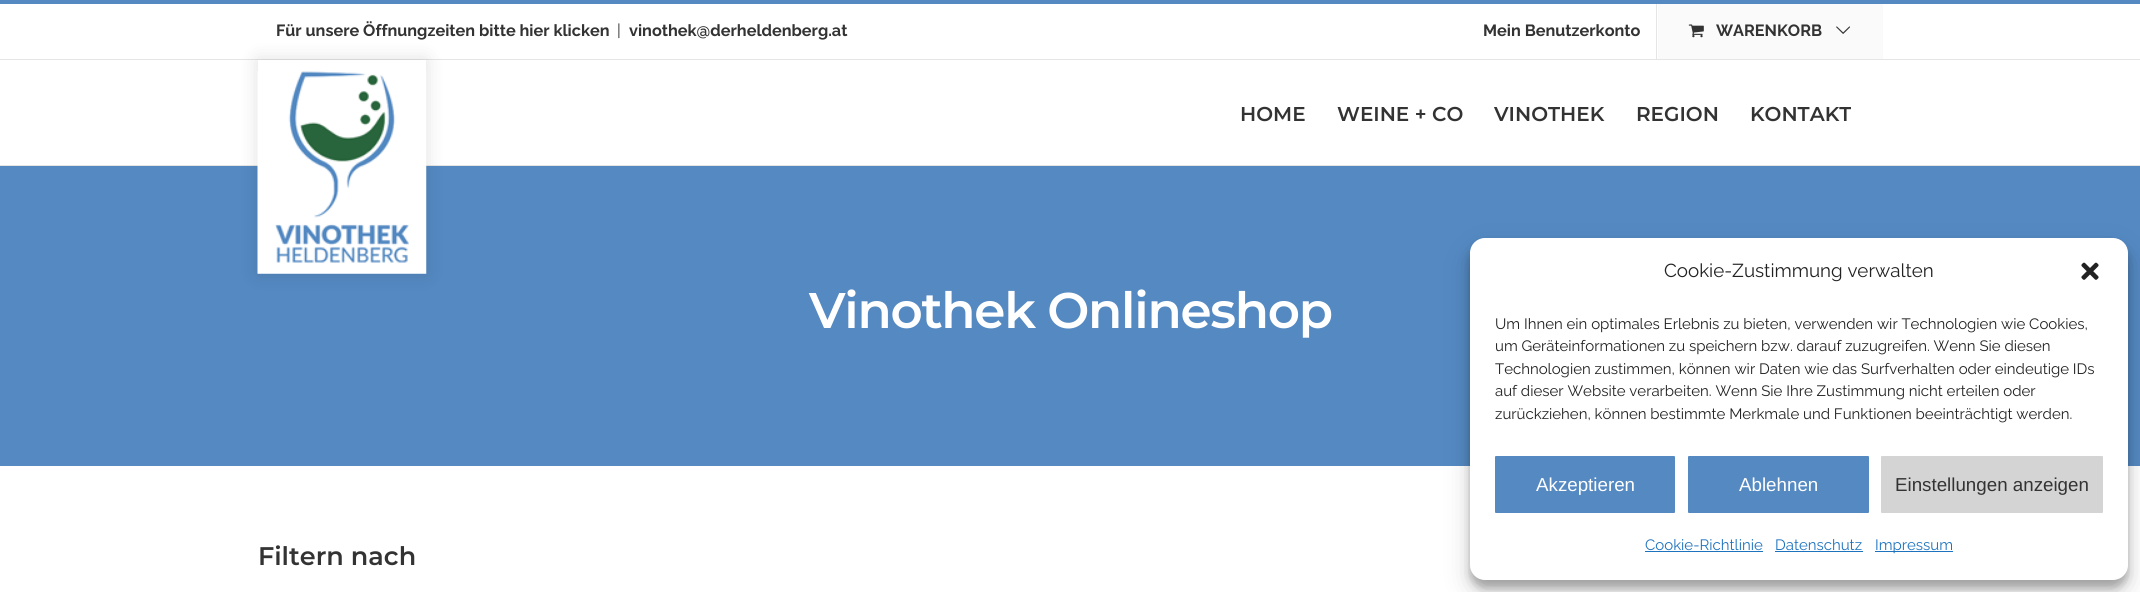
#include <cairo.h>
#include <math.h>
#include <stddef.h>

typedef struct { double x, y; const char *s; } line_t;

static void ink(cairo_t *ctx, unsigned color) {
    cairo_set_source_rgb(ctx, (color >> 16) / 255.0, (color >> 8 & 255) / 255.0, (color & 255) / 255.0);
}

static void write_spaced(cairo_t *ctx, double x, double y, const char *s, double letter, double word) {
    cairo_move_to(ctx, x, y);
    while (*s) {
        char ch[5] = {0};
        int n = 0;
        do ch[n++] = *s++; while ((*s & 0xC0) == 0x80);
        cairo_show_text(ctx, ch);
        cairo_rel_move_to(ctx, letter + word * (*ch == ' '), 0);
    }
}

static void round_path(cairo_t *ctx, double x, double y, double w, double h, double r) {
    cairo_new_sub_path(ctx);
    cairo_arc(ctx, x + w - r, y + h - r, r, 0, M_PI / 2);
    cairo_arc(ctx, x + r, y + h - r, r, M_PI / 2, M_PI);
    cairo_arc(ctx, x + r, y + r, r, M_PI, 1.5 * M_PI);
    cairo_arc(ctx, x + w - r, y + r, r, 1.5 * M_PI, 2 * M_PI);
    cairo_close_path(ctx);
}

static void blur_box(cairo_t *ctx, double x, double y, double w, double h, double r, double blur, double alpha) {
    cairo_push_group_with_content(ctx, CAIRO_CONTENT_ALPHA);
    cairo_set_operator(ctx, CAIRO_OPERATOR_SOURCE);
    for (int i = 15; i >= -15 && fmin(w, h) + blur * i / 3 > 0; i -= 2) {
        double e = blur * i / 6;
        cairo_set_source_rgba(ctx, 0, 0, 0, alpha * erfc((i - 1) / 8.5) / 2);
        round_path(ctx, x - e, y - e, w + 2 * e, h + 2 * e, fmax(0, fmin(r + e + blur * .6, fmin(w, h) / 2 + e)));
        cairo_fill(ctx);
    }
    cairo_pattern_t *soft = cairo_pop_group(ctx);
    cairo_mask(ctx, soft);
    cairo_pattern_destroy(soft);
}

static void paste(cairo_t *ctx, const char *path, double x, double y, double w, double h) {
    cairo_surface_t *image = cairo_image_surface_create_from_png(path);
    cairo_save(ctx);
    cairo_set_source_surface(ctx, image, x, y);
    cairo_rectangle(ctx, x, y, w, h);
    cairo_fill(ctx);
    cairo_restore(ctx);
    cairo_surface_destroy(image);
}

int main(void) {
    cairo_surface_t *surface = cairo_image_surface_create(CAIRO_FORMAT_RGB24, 2140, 592);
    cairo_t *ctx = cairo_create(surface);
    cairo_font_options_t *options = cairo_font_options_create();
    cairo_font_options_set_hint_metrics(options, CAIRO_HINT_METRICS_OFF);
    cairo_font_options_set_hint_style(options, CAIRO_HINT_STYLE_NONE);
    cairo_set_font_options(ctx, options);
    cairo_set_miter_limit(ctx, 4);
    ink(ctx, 0xFFFFFF);
    cairo_paint(ctx);
    ink(ctx, 0x5489C2);
    cairo_rectangle(ctx, 0, 0, 2140, 4);
    cairo_fill(ctx);
    ink(ctx, 0xE5E5E5);
    cairo_rectangle(ctx, 0, 59, 2140, 1);
    cairo_fill(ctx);
    cairo_select_font_face(ctx, "Raleway", CAIRO_FONT_SLANT_NORMAL, CAIRO_FONT_WEIGHT_BOLD);
    cairo_set_font_size(ctx, 16.25);
    ink(ctx, 0x333333);
    cairo_move_to(ctx, 276, 36);
    cairo_show_text(ctx, "Für unsere Öffnungzeiten bitte hier klicken");
    cairo_select_font_face(ctx, "Raleway", CAIRO_FONT_SLANT_NORMAL, CAIRO_FONT_WEIGHT_NORMAL);
    cairo_move_to(ctx, 617, 36);
    cairo_show_text(ctx, "|");
    cairo_select_font_face(ctx, "Raleway", CAIRO_FONT_SLANT_NORMAL, CAIRO_FONT_WEIGHT_BOLD);
    cairo_move_to(ctx, 629, 36);
    cairo_show_text(ctx, "vinothek@derheldenberg.at");
    cairo_move_to(ctx, 1483, 36);
    cairo_show_text(ctx, "Mein Benutzerkonto");
    ink(ctx, 0xE5E5E5);
    cairo_rectangle(ctx, 1656, 4, 1, 55);
    cairo_fill(ctx);
    ink(ctx, 0xFAFAFA);
    cairo_rectangle(ctx, 1658, 4, 225, 55);
    cairo_fill(ctx);
    paste(ctx, "media/1.png", 1688, 24, 16, 14);
    ink(ctx, 0x333333);
    cairo_move_to(ctx, 1716, 36);
    cairo_show_text(ctx, "WARENKORB");
    paste(ctx, "media/2.png", 1836, 26, 14, 8);
    ink(ctx, 0xE5E5E5);
    cairo_rectangle(ctx, 0, 165, 2140, 1);
    cairo_fill(ctx);
    ink(ctx, 0x5489C2);
    cairo_rectangle(ctx, 0, 166, 2140, 300);
    cairo_fill(ctx);
    cairo_save(ctx);
    cairo_set_fill_rule(ctx, CAIRO_FILL_RULE_EVEN_ODD);
    cairo_new_path(ctx);
    cairo_move_to(ctx, 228, 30);
    cairo_line_to(ctx, 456, 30);
    cairo_line_to(ctx, 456, 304);
    cairo_line_to(ctx, 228, 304);
    cairo_close_path(ctx);
    cairo_move_to(ctx, 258, 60);
    cairo_line_to(ctx, 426, 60);
    cairo_line_to(ctx, 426, 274);
    cairo_line_to(ctx, 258, 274);
    cairo_close_path(ctx);
    cairo_clip(ctx);
    ink(ctx, 0x141414);
    blur_box(ctx, 258, 60, 168, 214, 0, 9.5, 0.14);
    cairo_restore(ctx);
    paste(ctx, "media/3.png", 257, 71, 170, 203);
    cairo_select_font_face(ctx, "Montserrat SemiBold", CAIRO_FONT_SLANT_NORMAL, CAIRO_FONT_WEIGHT_NORMAL);
    cairo_set_font_size(ctx, 20);
    ink(ctx, 0x333333);
    {
        static const line_t items[] = {
            {1240, 121, "HOME"},
            {1337, 121, "WEINE + CO"},
            {1494, 121, "VINOTHEK"},
            {1636, 121, "REGION"},
            {1750, 121, "KONTAKT"},
        };
        for (size_t i = 0; i < sizeof items / sizeof *items; i++) {
            cairo_move_to(ctx, items[i].x, items[i].y);
            cairo_show_text(ctx, items[i].s);
        }
    }
    cairo_set_font_size(ctx, 50);
    ink(ctx, 0xFFFFFF);
    write_spaced(ctx, 809, 328, "Vinothek Onlineshop", -1.25, 0);
    cairo_set_font_size(ctx, 25.5);
    ink(ctx, 0x333333);
    cairo_move_to(ctx, 258, 565);
    cairo_show_text(ctx, "Filtern nach");
    ink(ctx, 0x000000);
    blur_box(ctx, 1470, 245, 658, 343, 15, 4, 0.23);
    blur_box(ctx, 1470, 250, 658, 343, 15, 12.5, 0.19);
    ink(ctx, 0xFFFFFF);
    round_path(ctx, 1470, 238, 658, 342, 15);
    cairo_fill(ctx);
    cairo_select_font_face(ctx, "Raleway", CAIRO_FONT_SLANT_NORMAL, CAIRO_FONT_WEIGHT_NORMAL);
    cairo_set_font_size(ctx, 18.75);
    ink(ctx, 0x222222);
    cairo_move_to(ctx, 1664, 277);
    cairo_show_text(ctx, "Cookie-Zustimmung verwalten");
    paste(ctx, "media/4.png", 2081, 262, 18, 18);
    cairo_set_font_size(ctx, 15);
    {
        static const line_t items[] = {
            {1495, 329, "Um Ihnen ein optimales Erlebnis zu bieten, verwenden wir Technologien wie Cookies,"},
            {1495, 351, "um Geräteinformationen zu speichern bzw. darauf zuzugreifen. Wenn Sie diesen"},
            {1495, 374, "Technologien zustimmen, können wir Daten wie das Surfverhalten oder eindeutige IDs"},
            {1495, 396, "auf dieser Website verarbeiten. Wenn Sie Ihre Zustimmung nicht erteilen oder"},
            {1495, 419, "zurückziehen, können bestimmte Merkmale und Funktionen beeinträchtigt werden."},
        };
        for (size_t i = 0; i < sizeof items / sizeof *items; i++) {
            cairo_move_to(ctx, items[i].x, items[i].y);
            cairo_show_text(ctx, items[i].s);
        }
    }
    ink(ctx, 0x5589C2);
    round_path(ctx, 1495.5, 456.5, 179, 56, 0.5);
    cairo_fill_preserve(ctx);
    cairo_set_line_width(ctx, 1);
    cairo_stroke(ctx);
    cairo_select_font_face(ctx, "Liberation Sans", CAIRO_FONT_SLANT_NORMAL, CAIRO_FONT_WEIGHT_NORMAL);
    cairo_set_font_size(ctx, 18.75);
    ink(ctx, 0xFFFFFF);
    cairo_move_to(ctx, 1536, 491);
    cairo_show_text(ctx, "Akzeptieren");
    ink(ctx, 0x5589C2);
    round_path(ctx, 1688.5, 456.5, 180, 56, 0.5);
    cairo_fill_preserve(ctx);
    cairo_stroke(ctx);
    ink(ctx, 0xFFFFFF);
    cairo_move_to(ctx, 1739, 491);
    cairo_show_text(ctx, "Ablehnen");
    ink(ctx, 0xD4D4D4);
    round_path(ctx, 1881.5, 456.5, 221, 56, 0.5);
    cairo_fill_preserve(ctx);
    cairo_stroke(ctx);
    ink(ctx, 0x333333);
    cairo_move_to(ctx, 1895, 491);
    cairo_show_text(ctx, "Einstellungen anzeigen");
    cairo_select_font_face(ctx, "Raleway", CAIRO_FONT_SLANT_NORMAL, CAIRO_FONT_WEIGHT_NORMAL);
    cairo_set_font_size(ctx, 15);
    ink(ctx, 0x1E73BE);
    cairo_move_to(ctx, 1645, 550);
    cairo_show_text(ctx, "Cookie-Richtlinie");
    cairo_rectangle(ctx, 1645, 551, 118, 1);
    cairo_fill(ctx);
    cairo_move_to(ctx, 1775, 550);
    cairo_show_text(ctx, "Datenschutz");
    cairo_rectangle(ctx, 1775, 551, 88, 1);
    cairo_fill(ctx);
    cairo_rectangle(ctx, 1875, 551, 78, 1);
    cairo_fill(ctx);
    cairo_move_to(ctx, 1875, 550);
    cairo_show_text(ctx, "Impressum");
    cairo_surface_write_to_png(surface, "image.png");
    cairo_font_options_destroy(options);
    cairo_destroy(ctx);
    cairo_surface_destroy(surface);
    return 0;
}
